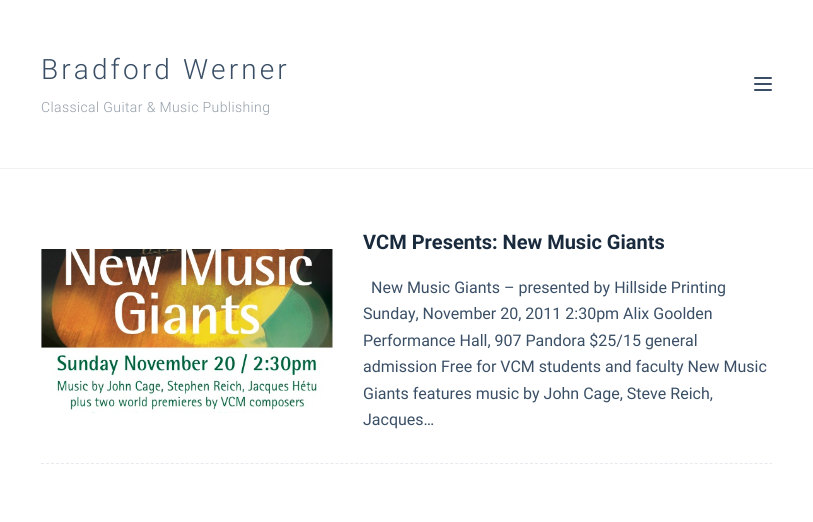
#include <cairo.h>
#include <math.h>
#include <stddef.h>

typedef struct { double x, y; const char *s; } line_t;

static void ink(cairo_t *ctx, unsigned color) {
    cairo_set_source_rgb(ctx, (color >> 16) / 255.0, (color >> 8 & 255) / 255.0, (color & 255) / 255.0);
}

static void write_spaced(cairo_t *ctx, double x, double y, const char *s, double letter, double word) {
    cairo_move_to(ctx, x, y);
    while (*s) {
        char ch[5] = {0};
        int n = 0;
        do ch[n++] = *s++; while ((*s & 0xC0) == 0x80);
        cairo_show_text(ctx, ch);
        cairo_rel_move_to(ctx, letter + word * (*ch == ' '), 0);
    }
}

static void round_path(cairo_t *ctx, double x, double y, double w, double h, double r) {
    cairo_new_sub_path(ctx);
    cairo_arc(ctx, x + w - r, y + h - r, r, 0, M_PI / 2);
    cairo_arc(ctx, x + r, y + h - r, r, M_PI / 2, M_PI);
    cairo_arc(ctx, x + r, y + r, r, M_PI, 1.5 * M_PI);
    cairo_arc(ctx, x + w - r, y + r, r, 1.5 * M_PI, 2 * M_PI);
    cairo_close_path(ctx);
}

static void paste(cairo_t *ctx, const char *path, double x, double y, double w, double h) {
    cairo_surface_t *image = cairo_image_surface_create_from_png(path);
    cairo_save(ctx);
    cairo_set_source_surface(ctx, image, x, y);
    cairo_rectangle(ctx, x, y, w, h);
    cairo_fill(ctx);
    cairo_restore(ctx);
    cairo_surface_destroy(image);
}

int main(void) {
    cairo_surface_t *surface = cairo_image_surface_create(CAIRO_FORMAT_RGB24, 813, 522);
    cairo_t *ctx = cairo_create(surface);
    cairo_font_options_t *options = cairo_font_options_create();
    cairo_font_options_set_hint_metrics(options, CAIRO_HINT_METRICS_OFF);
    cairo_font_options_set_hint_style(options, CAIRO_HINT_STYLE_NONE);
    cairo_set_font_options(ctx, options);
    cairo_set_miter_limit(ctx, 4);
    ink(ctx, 0xFFFFFF);
    cairo_paint(ctx);
    ink(ctx, 0xF0F1F3);
    cairo_rectangle(ctx, 0, 168, 813, 1);
    cairo_fill(ctx);
    cairo_select_font_face(ctx, "Roboto Light", CAIRO_FONT_SLANT_NORMAL, CAIRO_FONT_WEIGHT_NORMAL);
    cairo_set_font_size(ctx, 28);
    ink(ctx, 0x3A4F66);
    write_spaced(ctx, 41, 79, "Bradford Werner", 3.1, 0);
    cairo_set_font_size(ctx, 14);
    ink(ctx, 0x939DA8);
    write_spaced(ctx, 41, 112, "Classical Guitar & Music Publishing", 0.4, 0);
    ink(ctx, 0x3A4F66);
    round_path(ctx, 754, 77, 18, 2, 1);
    cairo_fill(ctx);
    round_path(ctx, 754, 83, 18, 2, 1);
    cairo_fill(ctx);
    round_path(ctx, 754, 89, 18, 2, 1);
    cairo_fill(ctx);
    cairo_new_path(ctx);
    cairo_move_to(ctx, 41, 463.5);
    cairo_line_to(ctx, 772, 463.5);
    ink(ctx, 0xE6EAEF);
    cairo_set_line_width(ctx, 1);
    cairo_set_dash(ctx, (double[]){3, 1.99}, 2, 0);
    cairo_stroke(ctx);
    paste(ctx, "media/1.png", 41, 249, 292, 164);
    cairo_select_font_face(ctx, "Roboto", CAIRO_FONT_SLANT_NORMAL, CAIRO_FONT_WEIGHT_BOLD);
    cairo_set_font_size(ctx, 20);
    ink(ctx, 0x192A3D);
    cairo_move_to(ctx, 363, 249);
    cairo_show_text(ctx, "VCM Presents: New Music Giants");
    cairo_select_font_face(ctx, "Roboto", CAIRO_FONT_SLANT_NORMAL, CAIRO_FONT_WEIGHT_NORMAL);
    cairo_set_font_size(ctx, 16);
    ink(ctx, 0x3A4F66);
    {
        static const line_t items[] = {
            {371, 293, "New Music Giants – presented by Hillside Printing"},
            {363, 319, "Sunday, November 20, 2011 2:30pm Alix Goolden"},
            {363, 346, "Performance Hall, 907 Pandora $25/15 general"},
            {363, 372, "admission Free for VCM students and faculty New Music"},
            {363, 399, "Giants features music by John Cage, Steve Reich,"},
            {363, 425, "Jacques…"},
        };
        for (size_t i = 0; i < sizeof items / sizeof *items; i++) {
            cairo_move_to(ctx, items[i].x, items[i].y);
            cairo_show_text(ctx, items[i].s);
        }
    }
    cairo_surface_write_to_png(surface, "image.png");
    cairo_font_options_destroy(options);
    cairo_destroy(ctx);
    cairo_surface_destroy(surface);
    return 0;
}
